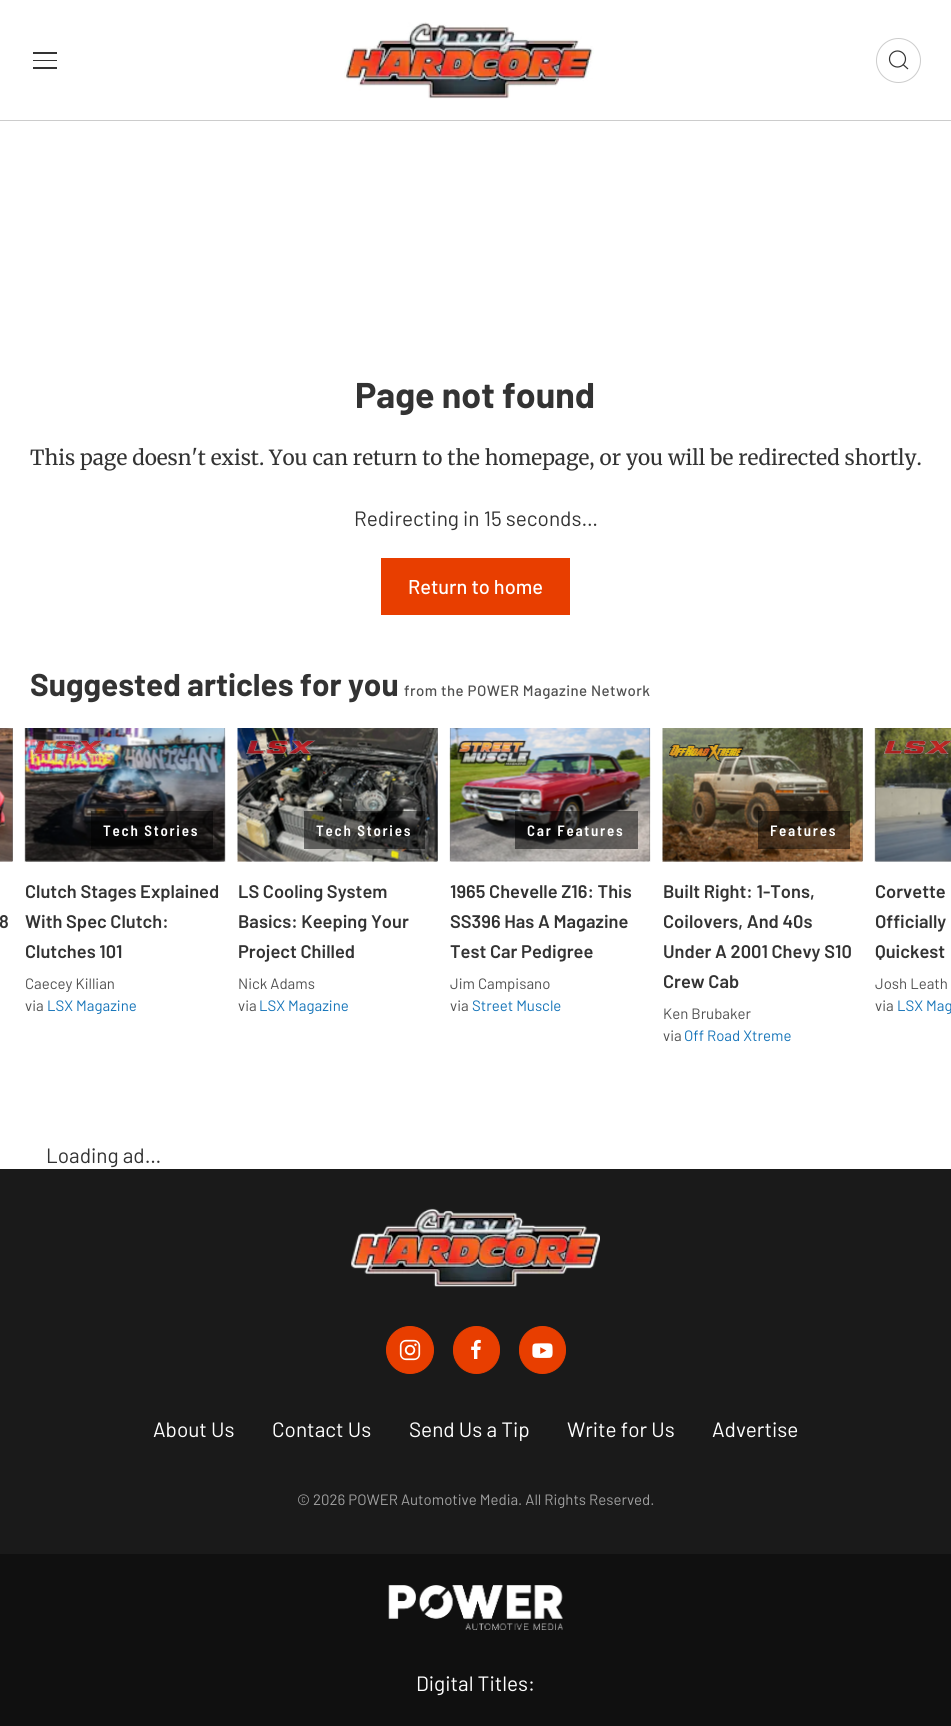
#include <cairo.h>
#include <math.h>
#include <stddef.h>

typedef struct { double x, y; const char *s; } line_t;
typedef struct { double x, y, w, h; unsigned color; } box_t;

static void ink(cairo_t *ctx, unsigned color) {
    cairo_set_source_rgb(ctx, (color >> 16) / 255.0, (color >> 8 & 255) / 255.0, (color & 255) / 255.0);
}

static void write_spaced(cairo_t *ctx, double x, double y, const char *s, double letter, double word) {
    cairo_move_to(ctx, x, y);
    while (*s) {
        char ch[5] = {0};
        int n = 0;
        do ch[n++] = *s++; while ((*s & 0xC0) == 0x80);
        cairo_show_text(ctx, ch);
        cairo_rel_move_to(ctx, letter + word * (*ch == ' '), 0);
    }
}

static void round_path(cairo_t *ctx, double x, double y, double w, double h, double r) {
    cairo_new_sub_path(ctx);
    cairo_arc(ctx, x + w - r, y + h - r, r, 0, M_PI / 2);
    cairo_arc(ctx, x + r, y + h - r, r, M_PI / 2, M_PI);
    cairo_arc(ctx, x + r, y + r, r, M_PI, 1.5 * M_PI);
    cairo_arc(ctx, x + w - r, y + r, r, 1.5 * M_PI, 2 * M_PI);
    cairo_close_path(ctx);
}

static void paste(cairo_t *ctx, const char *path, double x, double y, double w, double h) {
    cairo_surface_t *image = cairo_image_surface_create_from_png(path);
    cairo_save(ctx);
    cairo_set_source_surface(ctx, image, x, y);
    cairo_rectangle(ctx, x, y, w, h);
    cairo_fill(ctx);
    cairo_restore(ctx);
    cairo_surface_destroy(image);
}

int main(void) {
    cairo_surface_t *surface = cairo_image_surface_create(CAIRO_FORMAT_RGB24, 951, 1726);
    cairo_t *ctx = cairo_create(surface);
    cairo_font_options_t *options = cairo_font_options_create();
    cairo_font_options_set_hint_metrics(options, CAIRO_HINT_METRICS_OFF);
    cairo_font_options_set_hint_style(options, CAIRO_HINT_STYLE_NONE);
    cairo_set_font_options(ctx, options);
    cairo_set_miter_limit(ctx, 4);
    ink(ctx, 0xFFFFFF);
    cairo_paint(ctx);
    {
        static const box_t items[] = {
            {0, 120, 951, 1, 0xCCCCCC},
            {33, 52, 24, 2, 0x333333},
            {33, 60, 24, 1, 0x333333},
            {33, 67, 24, 2, 0x333333},
        };
        for (size_t i = 0; i < sizeof items / sizeof *items; i++) {
            ink(ctx, items[i].color);
            cairo_rectangle(ctx, items[i].x, items[i].y, items[i].w, items[i].h);
            cairo_fill(ctx);
        }
    }
    paste(ctx, "media/1.png", 344, 22, 250, 77);
    cairo_arc(ctx, 898.5, 60.5, 22, 0, 2 * M_PI);
    ink(ctx, 0xCCCCCC);
    cairo_set_line_width(ctx, 1);
    cairo_stroke(ctx);
    cairo_arc(ctx, 897.5, 59, 8, 0, 2 * M_PI);
    ink(ctx, 0x333333);
    cairo_set_line_width(ctx, 1.2);
    cairo_stroke(ctx);
    cairo_new_path(ctx);
    cairo_move_to(ctx, 903, 64.5);
    cairo_line_to(ctx, 908, 69);
    cairo_close_path(ctx);
    cairo_stroke(ctx);
    cairo_select_font_face(ctx, "Barlow", CAIRO_FONT_SLANT_NORMAL, CAIRO_FONT_WEIGHT_BOLD);
    cairo_set_font_size(ctx, 35.75);
    cairo_move_to(ctx, 355, 408);
    cairo_show_text(ctx, "Page not found");
    cairo_select_font_face(ctx, "Merriweather", CAIRO_FONT_SLANT_NORMAL, CAIRO_FONT_WEIGHT_NORMAL);
    cairo_set_font_size(ctx, 20.75);
    cairo_move_to(ctx, 30, 465);
    cairo_show_text(ctx, "This page doesn't exist. You can return to the homepage, or you will be redirected shortly.");
    cairo_select_font_face(ctx, "Barlow", CAIRO_FONT_SLANT_NORMAL, CAIRO_FONT_WEIGHT_NORMAL);
    cairo_move_to(ctx, 354, 526);
    cairo_show_text(ctx, "Redirecting in 15 seconds…");
    ink(ctx, 0xE83E00);
    cairo_rectangle(ctx, 381, 558, 189, 57);
    cairo_fill(ctx);
    cairo_select_font_face(ctx, "Barlow Medium", CAIRO_FONT_SLANT_NORMAL, CAIRO_FONT_WEIGHT_NORMAL);
    cairo_set_font_size(ctx, 20);
    ink(ctx, 0xFFFFFF);
    cairo_move_to(ctx, 408, 594);
    cairo_show_text(ctx, "Return to home");
    cairo_select_font_face(ctx, "Barlow", CAIRO_FONT_SLANT_NORMAL, CAIRO_FONT_WEIGHT_BOLD);
    cairo_set_font_size(ctx, 31.5);
    ink(ctx, 0x333333);
    cairo_move_to(ctx, 30, 696);
    cairo_show_text(ctx, "Suggested articles for you");
    cairo_select_font_face(ctx, "Barlow Medium", CAIRO_FONT_SLANT_NORMAL, CAIRO_FONT_WEIGHT_NORMAL);
    cairo_set_font_size(ctx, 15);
    ink(ctx, 0x505050);
    write_spaced(ctx, 404, 696, "from the POWER Magazine Network", 0.45, 0);
    ink(ctx, 0x808080);
    cairo_rectangle(ctx, 0, 728, 13, 133);
    cairo_fill(ctx);
    paste(ctx, "media/2.png", 0, 728, 13, 134);
    cairo_select_font_face(ctx, "Barlow SemiBold", CAIRO_FONT_SLANT_NORMAL, CAIRO_FONT_WEIGHT_NORMAL);
    cairo_set_font_size(ctx, 18.25);
    ink(ctx, 0x333333);
    cairo_move_to(ctx, -1, 928);
    cairo_show_text(ctx, "8");
    ink(ctx, 0x808080);
    cairo_rectangle(ctx, 25, 728, 200, 133);
    cairo_fill(ctx);
    paste(ctx, "media/4.png", 24, 728, 202, 134);
    paste(ctx, "media/3.png", 33, 740, 71, 18);
    cairo_set_source_rgba(ctx, 0, 0, 0, 0.5);
    cairo_rectangle(ctx, 91, 811, 122, 38);
    cairo_fill(ctx);
    cairo_select_font_face(ctx, "Barlow Semi Condensed SemiBold", CAIRO_FONT_SLANT_NORMAL, CAIRO_FONT_WEIGHT_NORMAL);
    cairo_set_font_size(ctx, 15);
    ink(ctx, 0xFFFFFF);
    write_spaced(ctx, 103, 836, "Tech Stories", 1.75, 0);
    cairo_select_font_face(ctx, "Barlow SemiBold", CAIRO_FONT_SLANT_NORMAL, CAIRO_FONT_WEIGHT_NORMAL);
    cairo_set_font_size(ctx, 18.25);
    ink(ctx, 0x333333);
    {
        static const line_t items[] = {
            {25, 898, "Clutch Stages Explained"},
            {25, 928, "With Spec Clutch:"},
            {25, 958, "Clutches 101"},
        };
        for (size_t i = 0; i < sizeof items / sizeof *items; i++) {
            cairo_move_to(ctx, items[i].x, items[i].y);
            cairo_show_text(ctx, items[i].s);
        }
    }
    cairo_select_font_face(ctx, "Barlow", CAIRO_FONT_SLANT_NORMAL, CAIRO_FONT_WEIGHT_NORMAL);
    cairo_set_font_size(ctx, 15);
    ink(ctx, 0x505050);
    cairo_move_to(ctx, 25, 989);
    cairo_show_text(ctx, "Caecey Killian");
    cairo_move_to(ctx, 25, 1011);
    cairo_show_text(ctx, "via");
    ink(ctx, 0x1574B9);
    cairo_move_to(ctx, 47, 1011);
    cairo_show_text(ctx, "LSX Magazine");
    ink(ctx, 0x808080);
    cairo_rectangle(ctx, 238, 728, 200, 133);
    cairo_fill(ctx);
    paste(ctx, "media/6.png", 237, 728, 201, 134);
    paste(ctx, "media/5.png", 246, 740, 70, 18);
    cairo_set_source_rgba(ctx, 0, 0, 0, 0.5);
    cairo_rectangle(ctx, 304, 811, 121, 38);
    cairo_fill(ctx);
    cairo_select_font_face(ctx, "Barlow Semi Condensed SemiBold", CAIRO_FONT_SLANT_NORMAL, CAIRO_FONT_WEIGHT_NORMAL);
    ink(ctx, 0xFFFFFF);
    write_spaced(ctx, 316, 836, "Tech Stories", 1.75, 0);
    cairo_select_font_face(ctx, "Barlow SemiBold", CAIRO_FONT_SLANT_NORMAL, CAIRO_FONT_WEIGHT_NORMAL);
    cairo_set_font_size(ctx, 18.25);
    ink(ctx, 0x333333);
    {
        static const line_t items[] = {
            {238, 898, "LS Cooling System"},
            {238, 928, "Basics: Keeping Your"},
            {238, 958, "Project Chilled"},
        };
        for (size_t i = 0; i < sizeof items / sizeof *items; i++) {
            cairo_move_to(ctx, items[i].x, items[i].y);
            cairo_show_text(ctx, items[i].s);
        }
    }
    cairo_select_font_face(ctx, "Barlow", CAIRO_FONT_SLANT_NORMAL, CAIRO_FONT_WEIGHT_NORMAL);
    cairo_set_font_size(ctx, 15);
    ink(ctx, 0x505050);
    cairo_move_to(ctx, 238, 989);
    cairo_show_text(ctx, "Nick Adams");
    cairo_move_to(ctx, 238, 1011);
    cairo_show_text(ctx, "via");
    ink(ctx, 0x1574B9);
    cairo_move_to(ctx, 259, 1011);
    cairo_show_text(ctx, "LSX Magazine");
    ink(ctx, 0x808080);
    cairo_rectangle(ctx, 450, 728, 200, 133);
    cairo_fill(ctx);
    paste(ctx, "media/8.png", 449, 728, 202, 134);
    paste(ctx, "media/7.png", 456, 740, 76, 26);
    cairo_set_source_rgba(ctx, 0, 0, 0, 0.5);
    cairo_rectangle(ctx, 515, 811, 123, 38);
    cairo_fill(ctx);
    cairo_select_font_face(ctx, "Barlow Semi Condensed SemiBold", CAIRO_FONT_SLANT_NORMAL, CAIRO_FONT_WEIGHT_NORMAL);
    ink(ctx, 0xFFFFFF);
    write_spaced(ctx, 527, 836, "Car Features", 1.75, 0);
    cairo_select_font_face(ctx, "Barlow SemiBold", CAIRO_FONT_SLANT_NORMAL, CAIRO_FONT_WEIGHT_NORMAL);
    cairo_set_font_size(ctx, 18.25);
    ink(ctx, 0x333333);
    {
        static const line_t items[] = {
            {450, 898, "1965 Chevelle Z16: This"},
            {450, 928, "SS396 Has A Magazine"},
            {450, 958, "Test Car Pedigree"},
        };
        for (size_t i = 0; i < sizeof items / sizeof *items; i++) {
            cairo_move_to(ctx, items[i].x, items[i].y);
            cairo_show_text(ctx, items[i].s);
        }
    }
    cairo_select_font_face(ctx, "Barlow", CAIRO_FONT_SLANT_NORMAL, CAIRO_FONT_WEIGHT_NORMAL);
    cairo_set_font_size(ctx, 15);
    ink(ctx, 0x505050);
    cairo_move_to(ctx, 450, 989);
    cairo_show_text(ctx, "Jim Campisano");
    cairo_move_to(ctx, 450, 1011);
    cairo_show_text(ctx, "via");
    ink(ctx, 0x1574B9);
    cairo_move_to(ctx, 472, 1011);
    cairo_show_text(ctx, "Street Muscle");
    ink(ctx, 0x808080);
    cairo_rectangle(ctx, 663, 728, 200, 133);
    cairo_fill(ctx);
    paste(ctx, "media/10.png", 662, 728, 201, 134);
    paste(ctx, "media/9.png", 669, 743, 75, 20);
    cairo_set_source_rgba(ctx, 0, 0, 0, 0.5);
    cairo_rectangle(ctx, 758, 811, 92, 38);
    cairo_fill(ctx);
    cairo_select_font_face(ctx, "Barlow Semi Condensed SemiBold", CAIRO_FONT_SLANT_NORMAL, CAIRO_FONT_WEIGHT_NORMAL);
    ink(ctx, 0xFFFFFF);
    write_spaced(ctx, 770, 836, "Features", 1.75, 0);
    cairo_select_font_face(ctx, "Barlow SemiBold", CAIRO_FONT_SLANT_NORMAL, CAIRO_FONT_WEIGHT_NORMAL);
    cairo_set_font_size(ctx, 18.25);
    ink(ctx, 0x333333);
    {
        static const line_t items[] = {
            {663, 898, "Built Right: 1-Tons,"},
            {663, 928, "Coilovers, And 40s"},
            {663, 958, "Under A 2001 Chevy S10"},
            {663, 988, "Crew Cab"},
        };
        for (size_t i = 0; i < sizeof items / sizeof *items; i++) {
            cairo_move_to(ctx, items[i].x, items[i].y);
            cairo_show_text(ctx, items[i].s);
        }
    }
    cairo_select_font_face(ctx, "Barlow", CAIRO_FONT_SLANT_NORMAL, CAIRO_FONT_WEIGHT_NORMAL);
    cairo_set_font_size(ctx, 15);
    ink(ctx, 0x505050);
    cairo_move_to(ctx, 663, 1019);
    cairo_show_text(ctx, "Ken Brubaker");
    cairo_move_to(ctx, 663, 1041);
    cairo_show_text(ctx, "via");
    ink(ctx, 0x1574B9);
    cairo_move_to(ctx, 684, 1041);
    cairo_show_text(ctx, "Off Road Xtreme");
    ink(ctx, 0x808080);
    cairo_rectangle(ctx, 875, 728, 76, 133);
    cairo_fill(ctx);
    paste(ctx, "media/12.png", 874, 728, 77, 134);
    paste(ctx, "media/11.png", 883, 740, 68, 18);
    cairo_select_font_face(ctx, "Barlow SemiBold", CAIRO_FONT_SLANT_NORMAL, CAIRO_FONT_WEIGHT_NORMAL);
    cairo_set_font_size(ctx, 18.25);
    ink(ctx, 0x333333);
    {
        static const line_t items[] = {
            {875, 898, "Corvette"},
            {875, 928, "Officially"},
            {875, 958, "Quickest"},
        };
        for (size_t i = 0; i < sizeof items / sizeof *items; i++) {
            cairo_move_to(ctx, items[i].x, items[i].y);
            cairo_show_text(ctx, items[i].s);
        }
    }
    cairo_select_font_face(ctx, "Barlow", CAIRO_FONT_SLANT_NORMAL, CAIRO_FONT_WEIGHT_NORMAL);
    cairo_set_font_size(ctx, 15);
    ink(ctx, 0x505050);
    cairo_move_to(ctx, 875, 989);
    cairo_show_text(ctx, "Josh Leath");
    cairo_move_to(ctx, 875, 1011);
    cairo_show_text(ctx, "via");
    ink(ctx, 0x1574B9);
    cairo_move_to(ctx, 897, 1011);
    cairo_show_text(ctx, "LSX Mag");
    cairo_set_font_size(ctx, 20.75);
    ink(ctx, 0x333333);
    cairo_move_to(ctx, 46, 1163);
    cairo_show_text(ctx, "Loading ad…");
    ink(ctx, 0x1A1A1A);
    cairo_rectangle(ctx, 0, 1169, 951, 385);
    cairo_fill(ctx);
    paste(ctx, "media/13.png", 351, 1208, 249, 79);
    ink(ctx, 0xE83E00);
    cairo_arc(ctx, 410, 1350, 23.5, 0, 2 * M_PI);
    cairo_fill_preserve(ctx);
    cairo_set_line_width(ctx, 1);
    cairo_stroke(ctx);
    paste(ctx, "media/14.png", 399, 1339, 22, 22);
    round_path(ctx, 453.5, 1326.5, 46, 47, 23);
    cairo_fill_preserve(ctx);
    cairo_stroke(ctx);
    paste(ctx, "media/15.png", 471, 1339, 10, 20);
    round_path(ctx, 519.5, 1326.5, 46, 47, 23);
    cairo_fill_preserve(ctx);
    cairo_stroke(ctx);
    paste(ctx, "media/16.png", 532, 1343, 21, 15);
    ink(ctx, 0xFFFFFF);
    {
        static const line_t items[] = {
            {153, 1437, "About Us"},
            {272, 1437, "Contact Us"},
            {409, 1437, "Send Us a Tip"},
            {567, 1437, "Write for Us"},
            {712, 1437, "Advertise"},
        };
        for (size_t i = 0; i < sizeof items / sizeof *items; i++) {
            cairo_move_to(ctx, items[i].x, items[i].y);
            cairo_show_text(ctx, items[i].s);
        }
    }
    cairo_set_font_size(ctx, 15);
    ink(ctx, 0xA0A0A0);
    cairo_move_to(ctx, 297, 1505);
    cairo_show_text(ctx, "© 2026 POWER Automotive Media. All Rights Reserved.");
    ink(ctx, 0x101010);
    cairo_rectangle(ctx, 0, 1554, 951, 172);
    cairo_fill(ctx);
    paste(ctx, "media/17.png", 388, 1585, 175, 45);
    cairo_set_font_size(ctx, 20.75);
    ink(ctx, 0xFFFFFF);
    cairo_move_to(ctx, 416, 1691);
    cairo_show_text(ctx, "Digital Titles:");
    cairo_surface_write_to_png(surface, "image.png");
    cairo_font_options_destroy(options);
    cairo_destroy(ctx);
    cairo_surface_destroy(surface);
    return 0;
}
